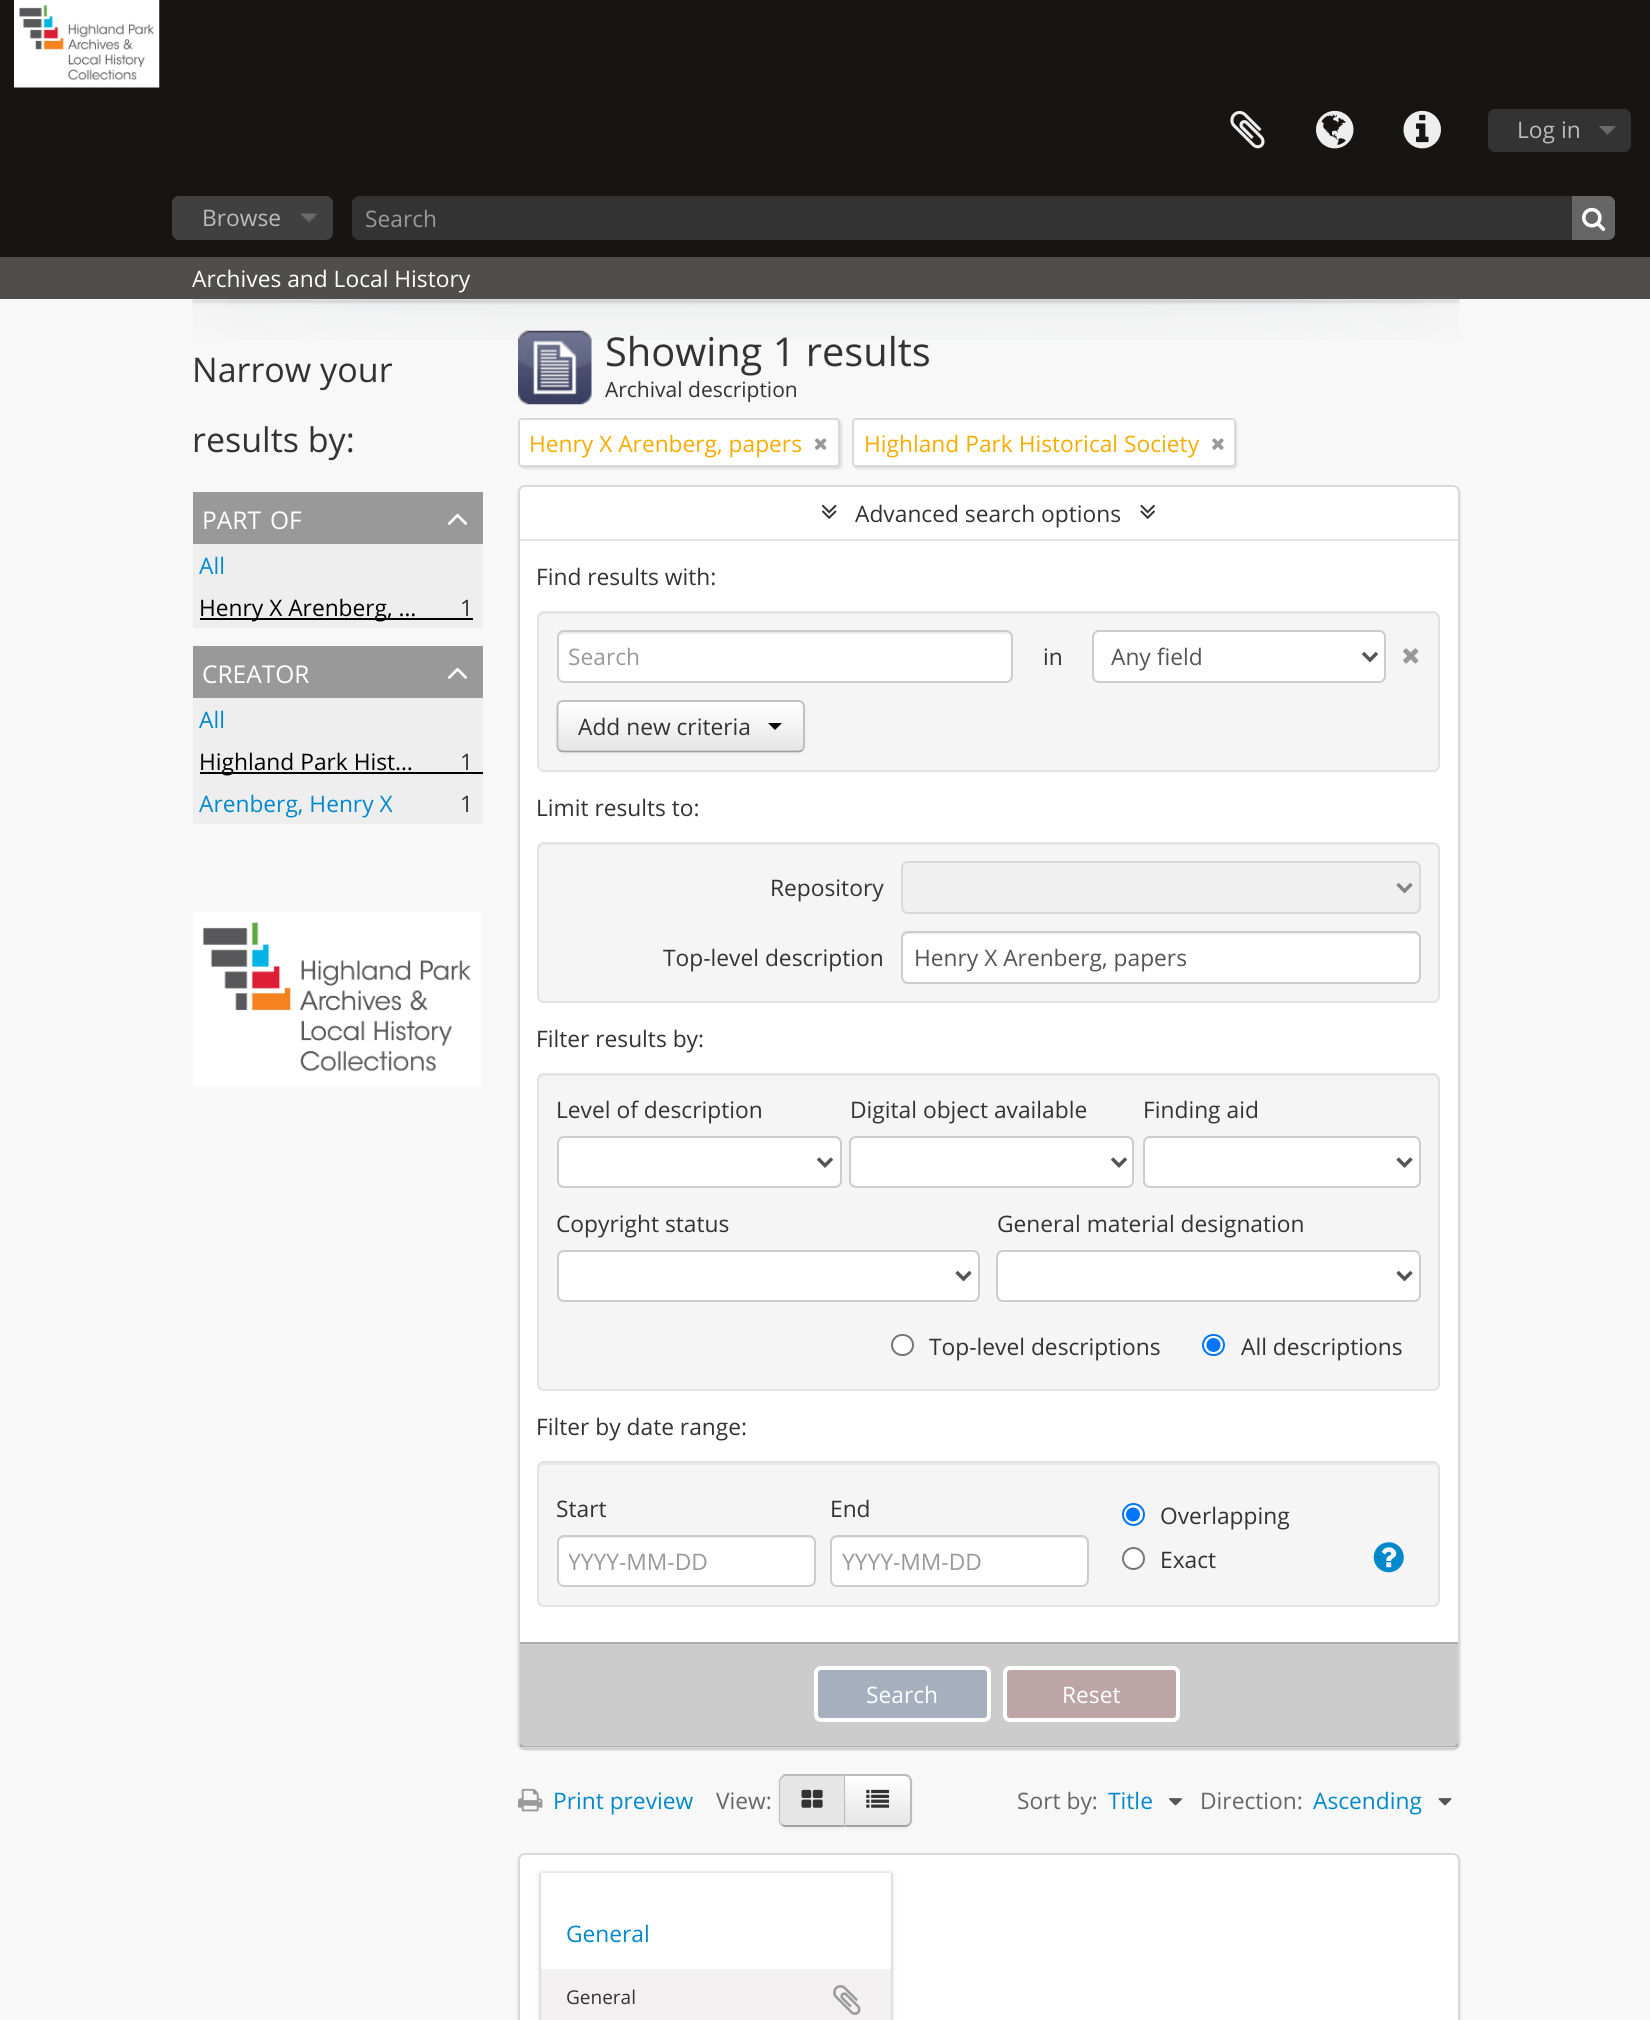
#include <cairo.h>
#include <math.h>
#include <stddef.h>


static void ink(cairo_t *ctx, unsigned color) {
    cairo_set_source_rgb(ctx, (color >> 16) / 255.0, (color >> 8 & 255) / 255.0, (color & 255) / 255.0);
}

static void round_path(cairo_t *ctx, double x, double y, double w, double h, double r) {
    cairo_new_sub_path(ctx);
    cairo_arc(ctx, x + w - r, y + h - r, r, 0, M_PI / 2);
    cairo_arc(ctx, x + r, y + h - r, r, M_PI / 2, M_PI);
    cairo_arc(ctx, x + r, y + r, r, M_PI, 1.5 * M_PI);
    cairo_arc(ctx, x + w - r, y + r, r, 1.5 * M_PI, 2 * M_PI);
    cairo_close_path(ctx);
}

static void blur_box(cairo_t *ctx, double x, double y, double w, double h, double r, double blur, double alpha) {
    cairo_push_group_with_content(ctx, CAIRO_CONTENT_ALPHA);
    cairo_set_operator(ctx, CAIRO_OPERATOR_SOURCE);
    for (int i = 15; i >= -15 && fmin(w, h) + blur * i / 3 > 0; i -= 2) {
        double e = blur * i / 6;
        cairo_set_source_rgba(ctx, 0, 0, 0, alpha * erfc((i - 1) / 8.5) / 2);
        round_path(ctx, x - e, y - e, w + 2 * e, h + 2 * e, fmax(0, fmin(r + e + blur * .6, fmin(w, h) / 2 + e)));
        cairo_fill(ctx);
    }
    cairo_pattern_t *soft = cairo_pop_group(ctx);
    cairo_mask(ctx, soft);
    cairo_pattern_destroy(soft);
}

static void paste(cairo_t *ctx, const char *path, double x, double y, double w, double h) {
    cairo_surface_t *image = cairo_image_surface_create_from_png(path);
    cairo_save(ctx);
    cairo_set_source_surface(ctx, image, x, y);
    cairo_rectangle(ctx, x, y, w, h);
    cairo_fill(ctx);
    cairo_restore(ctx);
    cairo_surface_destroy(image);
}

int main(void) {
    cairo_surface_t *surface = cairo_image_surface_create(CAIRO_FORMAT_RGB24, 1650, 2020);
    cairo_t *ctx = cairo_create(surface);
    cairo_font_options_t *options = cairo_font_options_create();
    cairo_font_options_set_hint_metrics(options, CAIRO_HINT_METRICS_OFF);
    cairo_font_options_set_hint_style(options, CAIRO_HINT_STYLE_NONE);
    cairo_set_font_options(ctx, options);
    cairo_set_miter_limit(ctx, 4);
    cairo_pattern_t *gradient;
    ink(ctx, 0xF8F8F8);
    cairo_paint(ctx);
    ink(ctx, 0x161514);
    cairo_rectangle(ctx, 0, 0, 1650, 257);
    cairo_fill(ctx);
    paste(ctx, "media/1.png", 14, 0, 146, 88);
    paste(ctx, "media/2.png", 1230, 111, 35, 38);
    paste(ctx, "media/3.png", 1316, 110, 38, 39);
    paste(ctx, "media/4.png", 1403, 110, 38, 39);
    ink(ctx, 0x333333);
    round_path(ctx, 1488, 109, 143, 43, 7);
    cairo_fill(ctx);
    paste(ctx, "media/5.png", 1599, 126, 17, 9);
    cairo_select_font_face(ctx, "Open Sans", CAIRO_FONT_SLANT_NORMAL, CAIRO_FONT_WEIGHT_NORMAL);
    cairo_set_font_size(ctx, 22.75);
    ink(ctx, 0xBBBBBB);
    cairo_move_to(ctx, 1517, 138);
    cairo_show_text(ctx, "Log in");
    ink(ctx, 0x404040);
    round_path(ctx, 172, 196, 161, 44, 7);
    cairo_fill(ctx);
    paste(ctx, "media/6.png", 301, 213, 17, 10);
    ink(ctx, 0xBBBBBB);
    cairo_move_to(ctx, 202, 226);
    cairo_show_text(ctx, "Browse");
    ink(ctx, 0x333333);
    round_path(ctx, 352, 196, 1263, 44, 7);
    cairo_fill(ctx);
    cairo_set_source_rgba(ctx, 0, 0, 0, 0.07);
    cairo_new_path(ctx);
    cairo_move_to(ctx, 359, 198);
    cairo_line_to(ctx, 1608, 198);
    cairo_curve_to(ctx, 1612, 198, 1615, 201, 1615, 205);
    cairo_line_to(ctx, 1615, 203);
    cairo_curve_to(ctx, 1615, 199, 1612, 196, 1608, 196);
    cairo_line_to(ctx, 359, 196);
    cairo_curve_to(ctx, 355, 196, 352, 199, 352, 203);
    cairo_line_to(ctx, 352, 205);
    cairo_curve_to(ctx, 352, 201, 355, 198, 359, 198);
    cairo_close_path(ctx);
    cairo_fill(ctx);
    ink(ctx, 0x999999);
    cairo_move_to(ctx, 365, 227);
    cairo_show_text(ctx, "Search");
    ink(ctx, 0x666666);
    cairo_new_path(ctx);
    cairo_move_to(ctx, 1572, 196);
    cairo_line_to(ctx, 1608, 196);
    cairo_curve_to(ctx, 1612, 196, 1615, 199, 1615, 203);
    cairo_line_to(ctx, 1615, 233);
    cairo_curve_to(ctx, 1615, 237, 1612, 240, 1608, 240);
    cairo_line_to(ctx, 1572, 240);
    cairo_close_path(ctx);
    cairo_fill(ctx);
    paste(ctx, "media/7.png", 1582, 207, 24, 25);
    ink(ctx, 0x4F4E4D);
    cairo_rectangle(ctx, 0, 257, 1650, 42);
    cairo_fill(ctx);
    ink(ctx, 0xFFFFFF);
    cairo_move_to(ctx, 192, 287);
    cairo_show_text(ctx, "Archives and Local History");
    paste(ctx, "media/8.png", 192, 299, 1268, 41);
    cairo_set_font_size(ctx, 34);
    ink(ctx, 0x333333);
    cairo_move_to(ctx, 192, 382);
    cairo_show_text(ctx, "Narrow your");
    cairo_move_to(ctx, 192, 452);
    cairo_show_text(ctx, "results by:");
    ink(ctx, 0x999999);
    cairo_rectangle(ctx, 193, 492, 290, 52);
    cairo_fill(ctx);
    cairo_set_font_size(ctx, 24.5);
    ink(ctx, 0xFFFFFF);
    cairo_move_to(ctx, 202, 529);
    cairo_show_text(ctx, "PART");
    cairo_move_to(ctx, 270, 529);
    cairo_show_text(ctx, "OF");
    paste(ctx, "media/9.png", 447, 513, 21, 12);
    ink(ctx, 0xEEEEEE);
    cairo_rectangle(ctx, 193, 544, 290, 84);
    cairo_fill(ctx);
    cairo_set_font_size(ctx, 22.75);
    ink(ctx, 0x0088CC);
    cairo_move_to(ctx, 199, 574);
    cairo_show_text(ctx, "All");
    ink(ctx, 0x000000);
    cairo_rectangle(ctx, 200, 618, 273, 2);
    cairo_fill(ctx);
    cairo_move_to(ctx, 199, 616);
    cairo_show_text(ctx, "Henry X Arenberg, …");
    ink(ctx, 0x333333);
    cairo_move_to(ctx, 460, 616);
    cairo_show_text(ctx, "1");
    ink(ctx, 0x999999);
    cairo_rectangle(ctx, 193, 646, 290, 52);
    cairo_fill(ctx);
    cairo_set_font_size(ctx, 24.5);
    ink(ctx, 0xFFFFFF);
    cairo_move_to(ctx, 202, 683);
    cairo_show_text(ctx, "CREATOR");
    paste(ctx, "media/9.png", 447, 667, 21, 12);
    ink(ctx, 0xEEEEEE);
    cairo_rectangle(ctx, 193, 698, 290, 126);
    cairo_fill(ctx);
    cairo_set_font_size(ctx, 22.75);
    ink(ctx, 0x0088CC);
    cairo_move_to(ctx, 199, 728);
    cairo_show_text(ctx, "All");
    ink(ctx, 0x000000);
    cairo_rectangle(ctx, 200, 772, 283, 2);
    cairo_fill(ctx);
    cairo_move_to(ctx, 199, 770);
    cairo_show_text(ctx, "Highland Park Hist…");
    ink(ctx, 0x333333);
    cairo_move_to(ctx, 460, 770);
    cairo_show_text(ctx, "1");
    ink(ctx, 0x0088CC);
    cairo_move_to(ctx, 199, 812);
    cairo_show_text(ctx, "Arenberg, Henry X");
    ink(ctx, 0x333333);
    cairo_move_to(ctx, 460, 812);
    cairo_show_text(ctx, "1");
    paste(ctx, "media/10.png", 193, 912, 288, 175);
    paste(ctx, "media/11.png", 518, 330, 74, 75);
    cairo_set_font_size(ctx, 39.75);
    cairo_move_to(ctx, 605, 366);
    cairo_show_text(ctx, "Showing 1 results");
    cairo_set_font_size(ctx, 21);
    cairo_move_to(ctx, 605, 397);
    cairo_show_text(ctx, "Archival description");
    ink(ctx, 0x000000);
    blur_box(ctx, 520, 420, 322, 49, 4, 1, 0.1);
    ink(ctx, 0xFFFFFF);
    round_path(ctx, 519, 419, 320, 47, 3);
    cairo_fill_preserve(ctx);
    ink(ctx, 0xD9D9D9);
    cairo_stroke(ctx);
    cairo_set_font_size(ctx, 22.75);
    ink(ctx, 0xF6AC00);
    cairo_move_to(ctx, 529, 452);
    cairo_show_text(ctx, "Henry X Arenberg, papers");
    paste(ctx, "media/12.png", 814, 438, 13, 12);
    ink(ctx, 0x000000);
    blur_box(ctx, 854, 420, 383, 49, 4, 1, 0.1);
    ink(ctx, 0xFFFFFF);
    round_path(ctx, 853, 419, 382, 47, 3);
    cairo_fill_preserve(ctx);
    ink(ctx, 0xD9D9D9);
    cairo_stroke(ctx);
    ink(ctx, 0xF6AC00);
    cairo_move_to(ctx, 864, 452);
    cairo_show_text(ctx, "Highland Park Historical Society");
    paste(ctx, "media/13.png", 1212, 438, 12, 12);
    ink(ctx, 0x000000);
    blur_box(ctx, 518, 487, 942, 1263, 7, 1, 0.2);
    ink(ctx, 0xFFFFFF);
    round_path(ctx, 519, 486, 940, 1261, 6);
    cairo_fill_preserve(ctx);
    ink(ctx, 0xD9D9D9);
    cairo_stroke(ctx);
    paste(ctx, "media/14.png", 821, 504, 16, 15);
    ink(ctx, 0x333333);
    cairo_move_to(ctx, 855, 522);
    cairo_show_text(ctx, "Advanced search options");
    paste(ctx, "media/15.png", 1140, 504, 15, 15);
    ink(ctx, 0xE3E3E3);
    cairo_rectangle(ctx, 520, 539, 938, 2);
    cairo_fill(ctx);
    ink(ctx, 0x333333);
    cairo_move_to(ctx, 536, 585);
    cairo_show_text(ctx, "Find results with:");
    ink(ctx, 0xF5F5F5);
    round_path(ctx, 537, 611, 903, 161, 7);
    cairo_fill(ctx);
    ink(ctx, 0xE9E9E9);
    cairo_new_path(ctx);
    cairo_move_to(ctx, 544, 614);
    cairo_line_to(ctx, 1433, 614);
    cairo_curve_to(ctx, 1436, 614, 1438, 617, 1438, 620);
    cairo_line_to(ctx, 1438, 766);
    cairo_line_to(ctx, 1438, 769);
    cairo_curve_to(ctx, 1438, 768, 1439, 766, 1439, 765);
    cairo_line_to(ctx, 1439, 618);
    cairo_curve_to(ctx, 1439, 615, 1437, 613, 1434, 613);
    cairo_line_to(ctx, 544, 613);
    cairo_curve_to(ctx, 541, 613, 539, 615, 539, 618);
    cairo_line_to(ctx, 539, 620);
    cairo_curve_to(ctx, 539, 617, 541, 614, 544, 614);
    cairo_close_path(ctx);
    cairo_fill(ctx);
    round_path(ctx, 538, 612, 901, 159, 6);
    ink(ctx, 0xE3E3E3);
    cairo_stroke(ctx);
    ink(ctx, 0xFFFFFF);
    round_path(ctx, 557, 630, 456, 53, 7);
    cairo_fill(ctx);
    ink(ctx, 0xECECEC);
    cairo_new_path(ctx);
    cairo_move_to(ctx, 564, 634);
    cairo_line_to(ctx, 1006, 634);
    cairo_curve_to(ctx, 1009, 634, 1012, 636, 1012, 639);
    cairo_curve_to(ctx, 1012, 636, 1011, 632, 1007, 632);
    cairo_line_to(ctx, 563, 632);
    cairo_curve_to(ctx, 559, 632, 558, 636, 558, 639);
    cairo_curve_to(ctx, 558, 636, 561, 634, 564, 634);
    cairo_close_path(ctx);
    cairo_fill(ctx);
    round_path(ctx, 558, 631, 454, 51, 6);
    ink(ctx, 0xCCCCCC);
    cairo_stroke(ctx);
    ink(ctx, 0x999999);
    cairo_move_to(ctx, 568, 665);
    cairo_show_text(ctx, "Search");
    ink(ctx, 0x333333);
    cairo_move_to(ctx, 1043, 665);
    cairo_show_text(ctx, "in");
    ink(ctx, 0xFFFFFF);
    round_path(ctx, 1093, 631, 292, 51, 6);
    cairo_fill_preserve(ctx);
    ink(ctx, 0xCCCCCC);
    cairo_stroke(ctx);
    cairo_new_path(ctx);
    cairo_move_to(ctx, 1363, 653);
    cairo_line_to(ctx, 1370, 660);
    cairo_line_to(ctx, 1377, 653);
    ink(ctx, 0x555555);
    cairo_set_line_width(ctx, 3.5);
    cairo_stroke(ctx);
    cairo_move_to(ctx, 1111, 665);
    cairo_show_text(ctx, "Any field");
    paste(ctx, "media/16.png", 1403, 648, 16, 16);
    ink(ctx, 0x000000);
    blur_box(ctx, 557, 702, 248, 52, 7, 2, 0.05);
    ink(ctx, 0xF5F5F5);
    round_path(ctx, 557, 700, 248, 53, 7);
    cairo_fill(ctx);
    cairo_save(ctx);
    round_path(ctx, 557, 700, 248, 53, 7);
    cairo_clip(ctx);
    gradient = cairo_pattern_create_linear(681, 702, 681, 751);
    cairo_pattern_add_color_stop_rgba(gradient, 0, 1, 1, 1, 1);
    cairo_pattern_add_color_stop_rgba(gradient, 1, 0.902, 0.902, 0.902, 1);
    cairo_set_source(ctx, gradient);
    cairo_pattern_destroy(gradient);
    cairo_rectangle(ctx, 557, 702, 248, 49);
    cairo_fill(ctx);
    cairo_restore(ctx);
    cairo_new_path(ctx);
    cairo_move_to(ctx, 802.5, 750);
    cairo_curve_to(ctx, 801, 751, 799.5, 751.5, 798, 751.5);
    cairo_line_to(ctx, 563.5, 751.5);
    cairo_curve_to(ctx, 562, 751.5, 560.5, 751, 559, 750);
    ink(ctx, 0xA2A2A2);
    cairo_set_line_width(ctx, 1.8);
    cairo_stroke(ctx);
    cairo_new_path(ctx);
    cairo_move_to(ctx, 559, 750);
    cairo_curve_to(ctx, 558, 748.5, 557.5, 747, 557.5, 745.5);
    cairo_line_to(ctx, 557.5, 707);
    cairo_curve_to(ctx, 557.5, 705.5, 558, 704, 559, 702.5);
    cairo_curve_to(ctx, 560.5, 701.5, 562, 701, 563.5, 701);
    cairo_line_to(ctx, 798, 701);
    cairo_curve_to(ctx, 799.5, 701, 801, 701.5, 802.5, 702.5);
    cairo_curve_to(ctx, 803.5, 704, 804, 705.5, 804, 707);
    cairo_line_to(ctx, 804, 745.5);
    cairo_curve_to(ctx, 804, 747, 803.5, 748.5, 802.5, 750);
    ink(ctx, 0xBBBBBB);
    cairo_stroke(ctx);
    ink(ctx, 0x333333);
    cairo_move_to(ctx, 578, 735);
    cairo_show_text(ctx, "Add new criteria");
    ink(ctx, 0x000000);
    cairo_new_path(ctx);
    cairo_move_to(ctx, 768, 723);
    cairo_line_to(ctx, 782, 723);
    cairo_line_to(ctx, 775, 730);
    cairo_close_path(ctx);
    cairo_fill(ctx);
    ink(ctx, 0x333333);
    cairo_move_to(ctx, 536, 816);
    cairo_show_text(ctx, "Limit results to:");
    ink(ctx, 0xF5F5F5);
    round_path(ctx, 537, 842, 903, 161, 7);
    cairo_fill(ctx);
    ink(ctx, 0xE9E9E9);
    cairo_new_path(ctx);
    cairo_move_to(ctx, 544, 845);
    cairo_line_to(ctx, 1433, 845);
    cairo_curve_to(ctx, 1436, 845, 1438, 848, 1438, 850);
    cairo_line_to(ctx, 1438, 999);
    cairo_curve_to(ctx, 1439, 998, 1439, 997, 1439, 996);
    cairo_line_to(ctx, 1439, 849);
    cairo_curve_to(ctx, 1439, 846, 1437, 844, 1434, 844);
    cairo_line_to(ctx, 544, 844);
    cairo_curve_to(ctx, 541, 844, 539, 846, 539, 849);
    cairo_line_to(ctx, 539, 850);
    cairo_curve_to(ctx, 539, 848, 541, 845, 544, 845);
    cairo_close_path(ctx);
    cairo_fill(ctx);
    round_path(ctx, 538, 843, 901, 159, 6);
    ink(ctx, 0xE3E3E3);
    cairo_set_line_width(ctx, 2);
    cairo_stroke(ctx);
    ink(ctx, 0x333333);
    cairo_move_to(ctx, 770, 896);
    cairo_show_text(ctx, "Repository");
    ink(ctx, 0xF0F0F0);
    round_path(ctx, 902, 862, 518, 51, 6);
    cairo_fill_preserve(ctx);
    ink(ctx, 0xD8D8D8);
    cairo_stroke(ctx);
    cairo_new_path(ctx);
    cairo_move_to(ctx, 1397.5, 884);
    cairo_line_to(ctx, 1404.5, 891);
    cairo_line_to(ctx, 1411.5, 884);
    ink(ctx, 0x858585);
    cairo_set_line_width(ctx, 3.5);
    cairo_stroke(ctx);
    ink(ctx, 0x333333);
    cairo_move_to(ctx, 663, 966);
    cairo_show_text(ctx, "Top-level description");
    ink(ctx, 0xFFFFFF);
    round_path(ctx, 901, 931, 520, 53, 7);
    cairo_fill(ctx);
    ink(ctx, 0xECECEC);
    cairo_new_path(ctx);
    cairo_move_to(ctx, 908, 934);
    cairo_line_to(ctx, 1414, 934);
    cairo_curve_to(ctx, 1417, 934, 1419, 937, 1419, 940);
    cairo_line_to(ctx, 1419, 938);
    cairo_curve_to(ctx, 1419, 935, 1417, 933, 1414, 933);
    cairo_line_to(ctx, 908, 933);
    cairo_curve_to(ctx, 905, 933, 903, 935, 903, 938);
    cairo_line_to(ctx, 903, 940);
    cairo_curve_to(ctx, 903, 937, 905, 934, 908, 934);
    cairo_close_path(ctx);
    cairo_fill(ctx);
    round_path(ctx, 902, 932, 518, 51, 6);
    ink(ctx, 0xCCCCCC);
    cairo_set_line_width(ctx, 2);
    cairo_stroke(ctx);
    ink(ctx, 0x555555);
    cairo_move_to(ctx, 914, 966);
    cairo_show_text(ctx, "Henry X Arenberg, papers");
    ink(ctx, 0x333333);
    cairo_move_to(ctx, 536, 1047);
    cairo_show_text(ctx, "Filter results by:");
    ink(ctx, 0xF5F5F5);
    round_path(ctx, 537, 1073, 903, 318, 7);
    cairo_fill(ctx);
    ink(ctx, 0xE9E9E9);
    cairo_new_path(ctx);
    cairo_move_to(ctx, 544, 1076);
    cairo_line_to(ctx, 1433, 1076);
    cairo_curve_to(ctx, 1436, 1076, 1438, 1079, 1438, 1082);
    cairo_line_to(ctx, 1438, 1386);
    cairo_line_to(ctx, 1437, 1389);
    cairo_curve_to(ctx, 1438, 1388, 1439, 1386, 1439, 1385);
    cairo_line_to(ctx, 1439, 1080);
    cairo_curve_to(ctx, 1439, 1077, 1437, 1075, 1434, 1075);
    cairo_line_to(ctx, 544, 1075);
    cairo_curve_to(ctx, 541, 1075, 539, 1077, 539, 1080);
    cairo_line_to(ctx, 539, 1082);
    cairo_curve_to(ctx, 539, 1079, 541, 1076, 544, 1076);
    cairo_close_path(ctx);
    cairo_fill(ctx);
    round_path(ctx, 538, 1074, 901, 316, 6);
    ink(ctx, 0xE3E3E3);
    cairo_stroke(ctx);
    ink(ctx, 0x333333);
    cairo_move_to(ctx, 556, 1118);
    cairo_show_text(ctx, "Level of description");
    ink(ctx, 0xFFFFFF);
    round_path(ctx, 558, 1137, 283, 50, 6);
    cairo_fill_preserve(ctx);
    ink(ctx, 0xCCCCCC);
    cairo_stroke(ctx);
    cairo_new_path(ctx);
    cairo_move_to(ctx, 818, 1158.5);
    cairo_line_to(ctx, 825, 1165.5);
    cairo_line_to(ctx, 832, 1158.5);
    ink(ctx, 0x555555);
    cairo_set_line_width(ctx, 3.5);
    cairo_stroke(ctx);
    ink(ctx, 0x333333);
    cairo_move_to(ctx, 850, 1118);
    cairo_show_text(ctx, "Digital object available");
    ink(ctx, 0xFFFFFF);
    round_path(ctx, 850, 1137, 283, 50, 6);
    cairo_fill_preserve(ctx);
    ink(ctx, 0xCCCCCC);
    cairo_set_line_width(ctx, 2);
    cairo_stroke(ctx);
    cairo_new_path(ctx);
    cairo_move_to(ctx, 1112, 1158.5);
    cairo_line_to(ctx, 1119, 1165.5);
    cairo_line_to(ctx, 1126, 1158.5);
    ink(ctx, 0x555555);
    cairo_set_line_width(ctx, 3.5);
    cairo_stroke(ctx);
    ink(ctx, 0x333333);
    cairo_move_to(ctx, 1143, 1118);
    cairo_show_text(ctx, "Finding aid");
    ink(ctx, 0xFFFFFF);
    round_path(ctx, 1144, 1137, 276, 50, 6);
    cairo_fill_preserve(ctx);
    ink(ctx, 0xCCCCCC);
    cairo_set_line_width(ctx, 2);
    cairo_stroke(ctx);
    cairo_new_path(ctx);
    cairo_move_to(ctx, 1397.5, 1158.5);
    cairo_line_to(ctx, 1404.5, 1165.5);
    cairo_line_to(ctx, 1411.5, 1158.5);
    ink(ctx, 0x555555);
    cairo_set_line_width(ctx, 3.5);
    cairo_stroke(ctx);
    ink(ctx, 0x333333);
    cairo_move_to(ctx, 556, 1232);
    cairo_show_text(ctx, "Copyright status");
    ink(ctx, 0xFFFFFF);
    round_path(ctx, 558, 1251, 421, 50, 6);
    cairo_fill_preserve(ctx);
    ink(ctx, 0xCCCCCC);
    cairo_set_line_width(ctx, 2);
    cairo_stroke(ctx);
    cairo_new_path(ctx);
    cairo_move_to(ctx, 956.5, 1272);
    cairo_line_to(ctx, 963.5, 1279);
    cairo_line_to(ctx, 970.5, 1272);
    ink(ctx, 0x555555);
    cairo_set_line_width(ctx, 3.5);
    cairo_stroke(ctx);
    ink(ctx, 0x333333);
    cairo_move_to(ctx, 997, 1232);
    cairo_show_text(ctx, "General material designation");
    ink(ctx, 0xFFFFFF);
    round_path(ctx, 997, 1251, 423, 50, 6);
    cairo_fill_preserve(ctx);
    ink(ctx, 0xCCCCCC);
    cairo_set_line_width(ctx, 2);
    cairo_stroke(ctx);
    cairo_new_path(ctx);
    cairo_move_to(ctx, 1397.5, 1272);
    cairo_line_to(ctx, 1404.5, 1279);
    cairo_line_to(ctx, 1411.5, 1272);
    ink(ctx, 0x555555);
    cairo_set_line_width(ctx, 3.5);
    cairo_stroke(ctx);
    ink(ctx, 0xFFFFFF);
    round_path(ctx, 892, 1335, 21, 20, 10);
    cairo_fill_preserve(ctx);
    ink(ctx, 0x767676);
    cairo_set_line_width(ctx, 2);
    cairo_stroke(ctx);
    ink(ctx, 0x333333);
    cairo_move_to(ctx, 929, 1355);
    cairo_show_text(ctx, "Top-level descriptions");
    ink(ctx, 0xFFFFFF);
    round_path(ctx, 1203, 1335, 21, 20, 10);
    cairo_fill_preserve(ctx);
    ink(ctx, 0x0075FF);
    cairo_stroke(ctx);
    cairo_arc(ctx, 1213.5, 1345, 7, 0, 2 * M_PI);
    cairo_fill(ctx);
    ink(ctx, 0x333333);
    cairo_move_to(ctx, 1241, 1355);
    cairo_show_text(ctx, "All descriptions");
    cairo_move_to(ctx, 536, 1435);
    cairo_show_text(ctx, "Filter by date range:");
    ink(ctx, 0xF5F5F5);
    round_path(ctx, 537, 1461, 903, 146, 7);
    cairo_fill(ctx);
    ink(ctx, 0xE9E9E9);
    cairo_new_path(ctx);
    cairo_move_to(ctx, 544, 1465);
    cairo_line_to(ctx, 1433, 1465);
    cairo_curve_to(ctx, 1436, 1465, 1438, 1467, 1438, 1470);
    cairo_line_to(ctx, 1438, 1601);
    cairo_line_to(ctx, 1437, 1604);
    cairo_curve_to(ctx, 1438, 1603, 1439, 1601, 1439, 1600);
    cairo_line_to(ctx, 1439, 1468);
    cairo_curve_to(ctx, 1439, 1465, 1437, 1463, 1434, 1463);
    cairo_line_to(ctx, 544, 1463);
    cairo_curve_to(ctx, 541, 1463, 539, 1465, 539, 1468);
    cairo_line_to(ctx, 539, 1470);
    cairo_curve_to(ctx, 539, 1467, 541, 1465, 544, 1465);
    cairo_close_path(ctx);
    cairo_fill(ctx);
    round_path(ctx, 538, 1462, 901, 144, 6);
    ink(ctx, 0xE3E3E3);
    cairo_stroke(ctx);
    cairo_save(ctx);
    cairo_rectangle(ctx, 557, 1491, 259, 35);
    cairo_clip(ctx);
    ink(ctx, 0x333333);
    cairo_move_to(ctx, 556, 1517);
    cairo_show_text(ctx, "Start");
    cairo_restore(ctx);
    ink(ctx, 0xFFFFFF);
    round_path(ctx, 557, 1535, 259, 52, 7);
    cairo_fill(ctx);
    ink(ctx, 0xECECEC);
    cairo_new_path(ctx);
    cairo_move_to(ctx, 564, 1538);
    cairo_line_to(ctx, 808, 1538);
    cairo_curve_to(ctx, 811, 1538, 814, 1541, 814, 1544);
    cairo_curve_to(ctx, 814, 1541, 813, 1537, 809, 1537);
    cairo_line_to(ctx, 563, 1537);
    cairo_curve_to(ctx, 559, 1537, 558, 1541, 558, 1544);
    cairo_curve_to(ctx, 558, 1541, 561, 1538, 564, 1538);
    cairo_close_path(ctx);
    cairo_fill(ctx);
    round_path(ctx, 558, 1536, 257, 50, 6);
    ink(ctx, 0xCCCCCC);
    cairo_stroke(ctx);
    cairo_save(ctx);
    cairo_rectangle(ctx, 569, 1545, 234, 32);
    cairo_clip(ctx);
    ink(ctx, 0x999999);
    cairo_move_to(ctx, 568, 1570);
    cairo_show_text(ctx, "YYYY-MM-DD");
    cairo_restore(ctx);
    ink(ctx, 0x333333);
    cairo_move_to(ctx, 830, 1517);
    cairo_show_text(ctx, "End");
    ink(ctx, 0xFFFFFF);
    round_path(ctx, 830, 1535, 259, 52, 7);
    cairo_fill(ctx);
    ink(ctx, 0xECECEC);
    cairo_new_path(ctx);
    cairo_move_to(ctx, 836, 1538);
    cairo_line_to(ctx, 1082, 1538);
    cairo_curve_to(ctx, 1084, 1538, 1087, 1541, 1087, 1544);
    cairo_curve_to(ctx, 1087, 1541, 1086, 1537, 1082, 1537);
    cairo_line_to(ctx, 836, 1537);
    cairo_curve_to(ctx, 832, 1537, 831, 1541, 831, 1544);
    cairo_curve_to(ctx, 831, 1541, 834, 1538, 836, 1538);
    cairo_close_path(ctx);
    cairo_fill(ctx);
    round_path(ctx, 831, 1536, 257, 50, 6);
    ink(ctx, 0xCCCCCC);
    cairo_stroke(ctx);
    ink(ctx, 0x999999);
    cairo_move_to(ctx, 842, 1570);
    cairo_show_text(ctx, "YYYY-MM-DD");
    ink(ctx, 0xFFFFFF);
    cairo_new_path(ctx);
    cairo_arc(ctx, 1133.5, 1514.5, 10.5, 0, 2 * M_PI);
    cairo_fill_preserve(ctx);
    ink(ctx, 0x0075FF);
    cairo_stroke(ctx);
    cairo_arc(ctx, 1133, 1514.5, 7, 0, 2 * M_PI);
    cairo_fill(ctx);
    ink(ctx, 0x333333);
    cairo_move_to(ctx, 1160, 1524);
    cairo_show_text(ctx, "Overlapping");
    ink(ctx, 0xFFFFFF);
    cairo_new_path(ctx);
    cairo_arc(ctx, 1133.5, 1558.5, 10.5, 0, 2 * M_PI);
    cairo_fill_preserve(ctx);
    ink(ctx, 0x767676);
    cairo_stroke(ctx);
    ink(ctx, 0x333333);
    cairo_move_to(ctx, 1160, 1568);
    cairo_show_text(ctx, "Exact");
    paste(ctx, "media/17.png", 1373, 1542, 31, 31);
    cairo_set_source_rgba(ctx, 0, 0, 0, 0.2);
    cairo_rectangle(ctx, 520, 1644, 938, 103);
    cairo_fill(ctx);
    ink(ctx, 0xADADAD);
    cairo_rectangle(ctx, 520, 1642, 938, 2);
    cairo_fill(ctx);
    ink(ctx, 0xA5AFBE);
    round_path(ctx, 816, 1668, 173, 52, 5);
    cairo_fill_preserve(ctx);
    ink(ctx, 0xFFFFFF);
    cairo_set_line_width(ctx, 4);
    cairo_stroke(ctx);
    cairo_move_to(ctx, 866, 1703);
    cairo_show_text(ctx, "Search");
    ink(ctx, 0xBEA5A5);
    round_path(ctx, 1005, 1668, 173, 52, 5);
    cairo_fill_preserve(ctx);
    ink(ctx, 0xFFFFFF);
    cairo_stroke(ctx);
    cairo_move_to(ctx, 1062, 1703);
    cairo_show_text(ctx, "Reset");
    paste(ctx, "media/18.png", 518, 1788, 25, 24);
    ink(ctx, 0x0088CC);
    cairo_move_to(ctx, 553, 1809);
    cairo_show_text(ctx, "Print preview");
    ink(ctx, 0x666666);
    cairo_move_to(ctx, 716, 1809);
    cairo_show_text(ctx, "View:");
    ink(ctx, 0x000000);
    blur_box(ctx, 844, 1776, 68, 53, 7, 2, 0.05);
    ink(ctx, 0xF5F5F5);
    cairo_new_path(ctx);
    cairo_move_to(ctx, 844, 1775);
    cairo_line_to(ctx, 905, 1775);
    cairo_curve_to(ctx, 909, 1775, 912, 1778, 912, 1782);
    cairo_line_to(ctx, 912, 1820);
    cairo_curve_to(ctx, 912, 1824, 909, 1827, 905, 1827);
    cairo_line_to(ctx, 844, 1827);
    cairo_close_path(ctx);
    cairo_fill(ctx);
    cairo_save(ctx);
    cairo_new_path(ctx);
    cairo_move_to(ctx, 844, 1775);
    cairo_line_to(ctx, 905, 1775);
    cairo_curve_to(ctx, 909, 1775, 912, 1778, 912, 1782);
    cairo_line_to(ctx, 912, 1820);
    cairo_curve_to(ctx, 912, 1824, 909, 1827, 905, 1827);
    cairo_line_to(ctx, 844, 1827);
    cairo_close_path(ctx);
    cairo_clip(ctx);
    gradient = cairo_pattern_create_linear(878, 1776, 878, 1825);
    cairo_pattern_add_color_stop_rgba(gradient, 0, 1, 1, 1, 1);
    cairo_pattern_add_color_stop_rgba(gradient, 1, 0.902, 0.902, 0.902, 1);
    cairo_set_source(ctx, gradient);
    cairo_pattern_destroy(gradient);
    cairo_rectangle(ctx, 845, 1776, 67, 49);
    cairo_fill(ctx);
    cairo_restore(ctx);
    ink(ctx, 0xBBBBBB);
    cairo_new_path(ctx);
    cairo_move_to(ctx, 845, 1776);
    cairo_line_to(ctx, 844, 1774);
    cairo_line_to(ctx, 907, 1774);
    cairo_line_to(ctx, 910, 1776);
    cairo_line_to(ctx, 909, 1778);
    cairo_curve_to(ctx, 908, 1777, 906, 1776, 905, 1776);
    cairo_close_path(ctx);
    cairo_fill(ctx);
    cairo_new_path(ctx);
    cairo_move_to(ctx, 912, 1822);
    cairo_line_to(ctx, 910, 1825);
    cairo_line_to(ctx, 908, 1824);
    cairo_curve_to(ctx, 909, 1823, 910, 1822, 910, 1820);
    cairo_line_to(ctx, 910, 1782);
    cairo_curve_to(ctx, 910, 1780, 909, 1779, 909, 1778);
    cairo_line_to(ctx, 910, 1776);
    cairo_line_to(ctx, 912, 1780);
    cairo_close_path(ctx);
    cairo_fill(ctx);
    ink(ctx, 0xA2A2A2);
    cairo_new_path(ctx);
    cairo_move_to(ctx, 844, 1827);
    cairo_line_to(ctx, 905, 1827);
    cairo_curve_to(ctx, 907, 1827, 909, 1826, 910, 1825);
    cairo_line_to(ctx, 908, 1824);
    cairo_curve_to(ctx, 908, 1825, 906, 1825, 905, 1825);
    cairo_line_to(ctx, 846, 1825);
    cairo_close_path(ctx);
    cairo_fill(ctx);
    ink(ctx, 0x000000);
    blur_box(ctx, 779, 1776, 66, 53, 7, 2, 0.05);
    ink(ctx, 0xE6E6E6);
    cairo_new_path(ctx);
    cairo_move_to(ctx, 786, 1775);
    cairo_line_to(ctx, 845, 1775);
    cairo_line_to(ctx, 845, 1827);
    cairo_line_to(ctx, 786, 1827);
    cairo_curve_to(ctx, 782, 1827, 779, 1824, 779, 1820);
    cairo_line_to(ctx, 779, 1782);
    cairo_curve_to(ctx, 779, 1778, 782, 1775, 786, 1775);
    cairo_close_path(ctx);
    cairo_fill(ctx);
    ink(ctx, 0xBBBBBB);
    cairo_new_path(ctx);
    cairo_move_to(ctx, 786, 1776);
    cairo_curve_to(ctx, 785, 1776, 783, 1777, 782, 1778);
    cairo_line_to(ctx, 781, 1777);
    cairo_line_to(ctx, 784, 1774);
    cairo_line_to(ctx, 845, 1774);
    cairo_line_to(ctx, 844, 1776);
    cairo_close_path(ctx);
    cairo_fill(ctx);
    cairo_new_path(ctx);
    cairo_move_to(ctx, 845, 1775);
    cairo_line_to(ctx, 845, 1827);
    cairo_line_to(ctx, 843, 1825);
    cairo_line_to(ctx, 844, 1825);
    cairo_line_to(ctx, 844, 1776);
    cairo_close_path(ctx);
    cairo_fill(ctx);
    ink(ctx, 0xA2A2A2);
    cairo_new_path(ctx);
    cairo_move_to(ctx, 786, 1827);
    cairo_line_to(ctx, 845, 1827);
    cairo_line_to(ctx, 843, 1825);
    cairo_line_to(ctx, 786, 1825);
    cairo_curve_to(ctx, 785, 1825, 783, 1825, 782, 1824);
    cairo_line_to(ctx, 781, 1825);
    cairo_curve_to(ctx, 782, 1826, 784, 1827, 786, 1827);
    cairo_close_path(ctx);
    cairo_fill(ctx);
    ink(ctx, 0xBBBBBB);
    cairo_new_path(ctx);
    cairo_move_to(ctx, 781, 1825);
    cairo_curve_to(ctx, 780, 1824, 779, 1822, 779, 1820);
    cairo_line_to(ctx, 779, 1782);
    cairo_curve_to(ctx, 779, 1780, 780, 1778, 781, 1777);
    cairo_line_to(ctx, 782, 1778);
    cairo_curve_to(ctx, 781, 1779, 780, 1780, 780, 1782);
    cairo_line_to(ctx, 780, 1820);
    cairo_curve_to(ctx, 780, 1822, 781, 1823, 782, 1824);
    cairo_close_path(ctx);
    cairo_fill(ctx);
    paste(ctx, "media/19.png", 801, 1789, 22, 19);
    paste(ctx, "media/20.png", 866, 1789, 23, 19);
    ink(ctx, 0x666666);
    cairo_move_to(ctx, 1017, 1809);
    cairo_show_text(ctx, "Sort by:");
    ink(ctx, 0x0088CC);
    cairo_move_to(ctx, 1108, 1809);
    cairo_show_text(ctx, "Title");
    paste(ctx, "media/21.png", 1169, 1798, 13, 8);
    ink(ctx, 0x666666);
    cairo_move_to(ctx, 1200, 1809);
    cairo_show_text(ctx, "Direction:");
    ink(ctx, 0x0088CC);
    cairo_move_to(ctx, 1313, 1809);
    cairo_show_text(ctx, "Ascending");
    paste(ctx, "media/22.png", 1438, 1798, 14, 8);
    ink(ctx, 0x000000);
    blur_box(ctx, 518, 1855, 942, 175, 7, 1, 0.2);
    ink(ctx, 0xFFFFFF);
    round_path(ctx, 519, 1854, 940, 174, 6);
    cairo_fill_preserve(ctx);
    ink(ctx, 0xD9D9D9);
    cairo_set_line_width(ctx, 2);
    cairo_stroke(ctx);
    ink(ctx, 0x191919);
    blur_box(ctx, 541, 1874, 350, 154, 0, 2.5, 0.4);
    ink(ctx, 0xFFFFFF);
    cairo_rectangle(ctx, 541, 1873, 350, 96);
    cairo_fill(ctx);
    ink(ctx, 0x0088CC);
    cairo_move_to(ctx, 566, 1942);
    cairo_show_text(ctx, "General");
    ink(ctx, 0xF2F0F0);
    cairo_rectangle(ctx, 541, 1969, 350, 51);
    cairo_fill(ctx);
    cairo_set_font_size(ctx, 19);
    ink(ctx, 0x333333);
    cairo_move_to(ctx, 566, 2004);
    cairo_show_text(ctx, "General");
    paste(ctx, "media/23.png", 833, 1985, 28, 30);
    cairo_surface_write_to_png(surface, "image.png");
    cairo_font_options_destroy(options);
    cairo_destroy(ctx);
    cairo_surface_destroy(surface);
    return 0;
}
